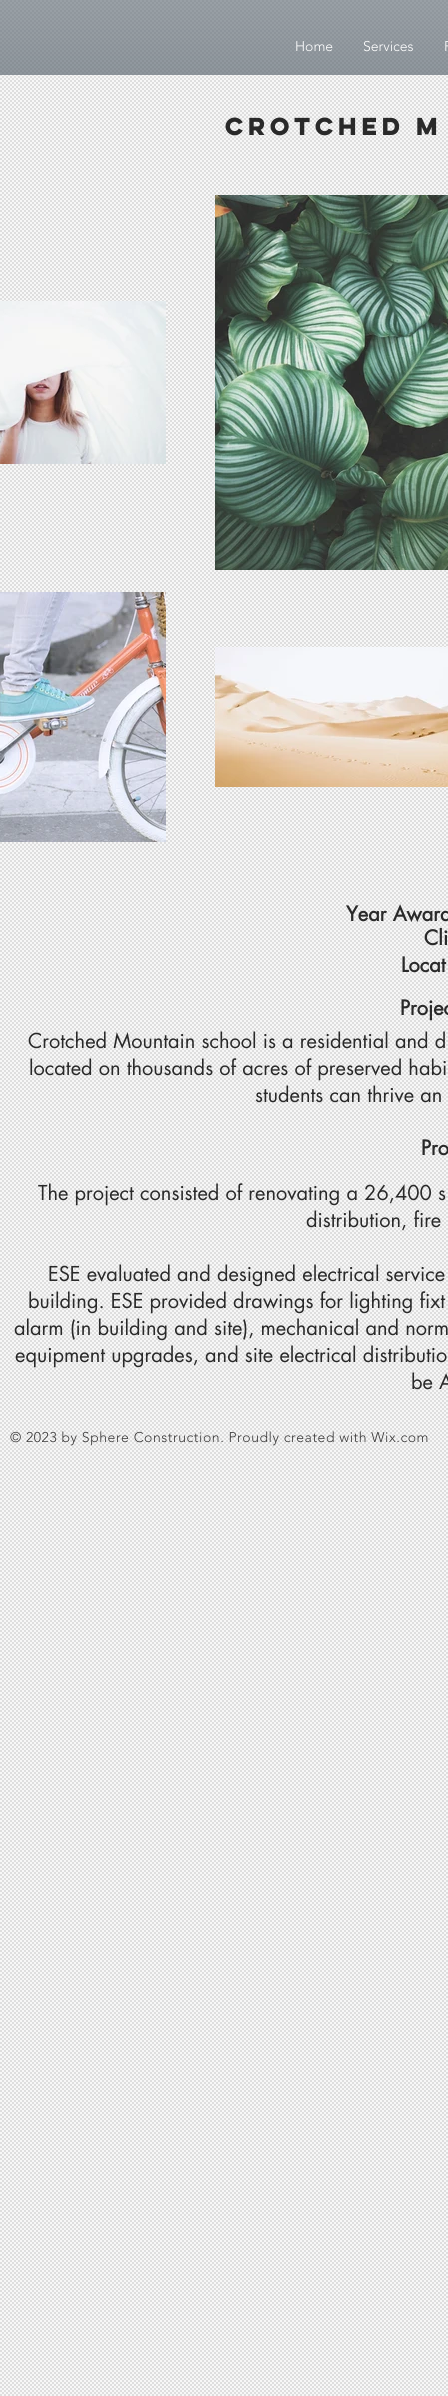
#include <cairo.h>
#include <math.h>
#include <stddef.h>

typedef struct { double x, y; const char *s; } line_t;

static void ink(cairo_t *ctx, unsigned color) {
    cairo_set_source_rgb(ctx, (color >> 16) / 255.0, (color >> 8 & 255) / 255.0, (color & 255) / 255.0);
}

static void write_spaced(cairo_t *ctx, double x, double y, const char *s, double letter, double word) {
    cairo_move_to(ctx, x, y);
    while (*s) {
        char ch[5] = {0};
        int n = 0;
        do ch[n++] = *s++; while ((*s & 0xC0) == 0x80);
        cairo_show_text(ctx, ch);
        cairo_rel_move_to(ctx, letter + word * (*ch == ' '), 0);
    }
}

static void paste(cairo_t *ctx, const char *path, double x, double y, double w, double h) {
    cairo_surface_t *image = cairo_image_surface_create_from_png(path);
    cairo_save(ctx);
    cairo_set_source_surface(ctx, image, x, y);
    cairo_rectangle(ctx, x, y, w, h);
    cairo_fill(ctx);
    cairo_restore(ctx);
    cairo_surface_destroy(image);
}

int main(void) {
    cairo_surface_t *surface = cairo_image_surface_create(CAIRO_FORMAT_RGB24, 448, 2396);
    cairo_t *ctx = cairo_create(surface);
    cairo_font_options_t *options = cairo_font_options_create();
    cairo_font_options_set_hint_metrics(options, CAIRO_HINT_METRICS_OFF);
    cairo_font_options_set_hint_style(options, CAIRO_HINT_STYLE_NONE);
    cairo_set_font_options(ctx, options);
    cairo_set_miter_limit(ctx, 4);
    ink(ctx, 0xF7F7F7);
    cairo_paint(ctx);
    paste(ctx, "media/1.png", 0, 0, 448, 2396);
    cairo_set_source_rgba(ctx, 0.118, 0.176, 0.231, 0.59);
    cairo_rectangle(ctx, 0, 0, 448, 75);
    cairo_fill(ctx);
    paste(ctx, "media/2.png", 0, 0, 448, 75);
    cairo_select_font_face(ctx, "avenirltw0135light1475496 Light", CAIRO_FONT_SLANT_NORMAL, CAIRO_FONT_WEIGHT_NORMAL);
    cairo_set_font_size(ctx, 14);
    ink(ctx, 0xFFFFFF);
    {
        static const line_t items[] = {
            {295, 51, "Home"},
            {363, 51, "Services"},
            {444, 51, "P"},
        };
        for (size_t i = 0; i < sizeof items / sizeof *items; i++) {
            cairo_move_to(ctx, items[i].x, items[i].y);
            cairo_show_text(ctx, items[i].s);
        }
    }
    cairo_select_font_face(ctx, "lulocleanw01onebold", CAIRO_FONT_SLANT_NORMAL, CAIRO_FONT_WEIGHT_BOLD);
    cairo_set_font_size(ctx, 22);
    ink(ctx, 0x292929);
    cairo_move_to(ctx, 225, 135);
    cairo_show_text(ctx, "CROTCHED M");
    paste(ctx, "media/3.png", 0, 301, 166, 163);
    paste(ctx, "media/4.png", 215, 195, 233, 375);
    paste(ctx, "media/5.png", 0, 592, 166, 250);
    paste(ctx, "media/6.png", 215, 647, 233, 140);
    cairo_select_font_face(ctx, "futura", CAIRO_FONT_SLANT_NORMAL, CAIRO_FONT_WEIGHT_BOLD);
    cairo_set_font_size(ctx, 20);
    {
        static const line_t items[] = {
            {346, 921, "Year Award"},
            {424, 945, "Cli"},
            {401, 972, "Locat"},
            {400, 1015, "Projec"},
            {421, 1155, "Pro"},
        };
        for (size_t i = 0; i < sizeof items / sizeof *items; i++) {
            cairo_move_to(ctx, items[i].x, items[i].y);
            cairo_show_text(ctx, items[i].s);
        }
    }
    cairo_select_font_face(ctx, "futura", CAIRO_FONT_SLANT_NORMAL, CAIRO_FONT_WEIGHT_NORMAL);
    {
        static const line_t items[] = {
            {28, 1048, "Crotched Mountain school is a residential and d"},
            {29, 1075, "located on thousands of acres of preserved habi"},
            {255, 1102, "students can thrive an"},
            {38, 1200, "The project consisted of renovating a 26,400 s"},
            {306, 1227, "distribution, fire"},
            {48, 1281, "ESE evaluated and designed electrical service"},
            {28, 1308, "building. ESE provided drawings for lighting fixt"},
            {14, 1335, "alarm (in building and site), mechanical and norm"},
            {15, 1362, "equipment upgrades, and site electrical distributio"},
            {411, 1389, "be A"},
        };
        for (size_t i = 0; i < sizeof items / sizeof *items; i++) {
            cairo_move_to(ctx, items[i].x, items[i].y);
            cairo_show_text(ctx, items[i].s);
        }
    }
    cairo_select_font_face(ctx, "avenirltw0135light1475496 Light", CAIRO_FONT_SLANT_NORMAL, CAIRO_FONT_WEIGHT_NORMAL);
    cairo_set_font_size(ctx, 14);
    ink(ctx, 0x3B3A3A);
    write_spaced(ctx, 10, 1442, "© 2023 by Sphere Construction. Proudly created with Wix.com", 0.55, 0);
    cairo_surface_write_to_png(surface, "image.png");
    cairo_font_options_destroy(options);
    cairo_destroy(ctx);
    cairo_surface_destroy(surface);
    return 0;
}
